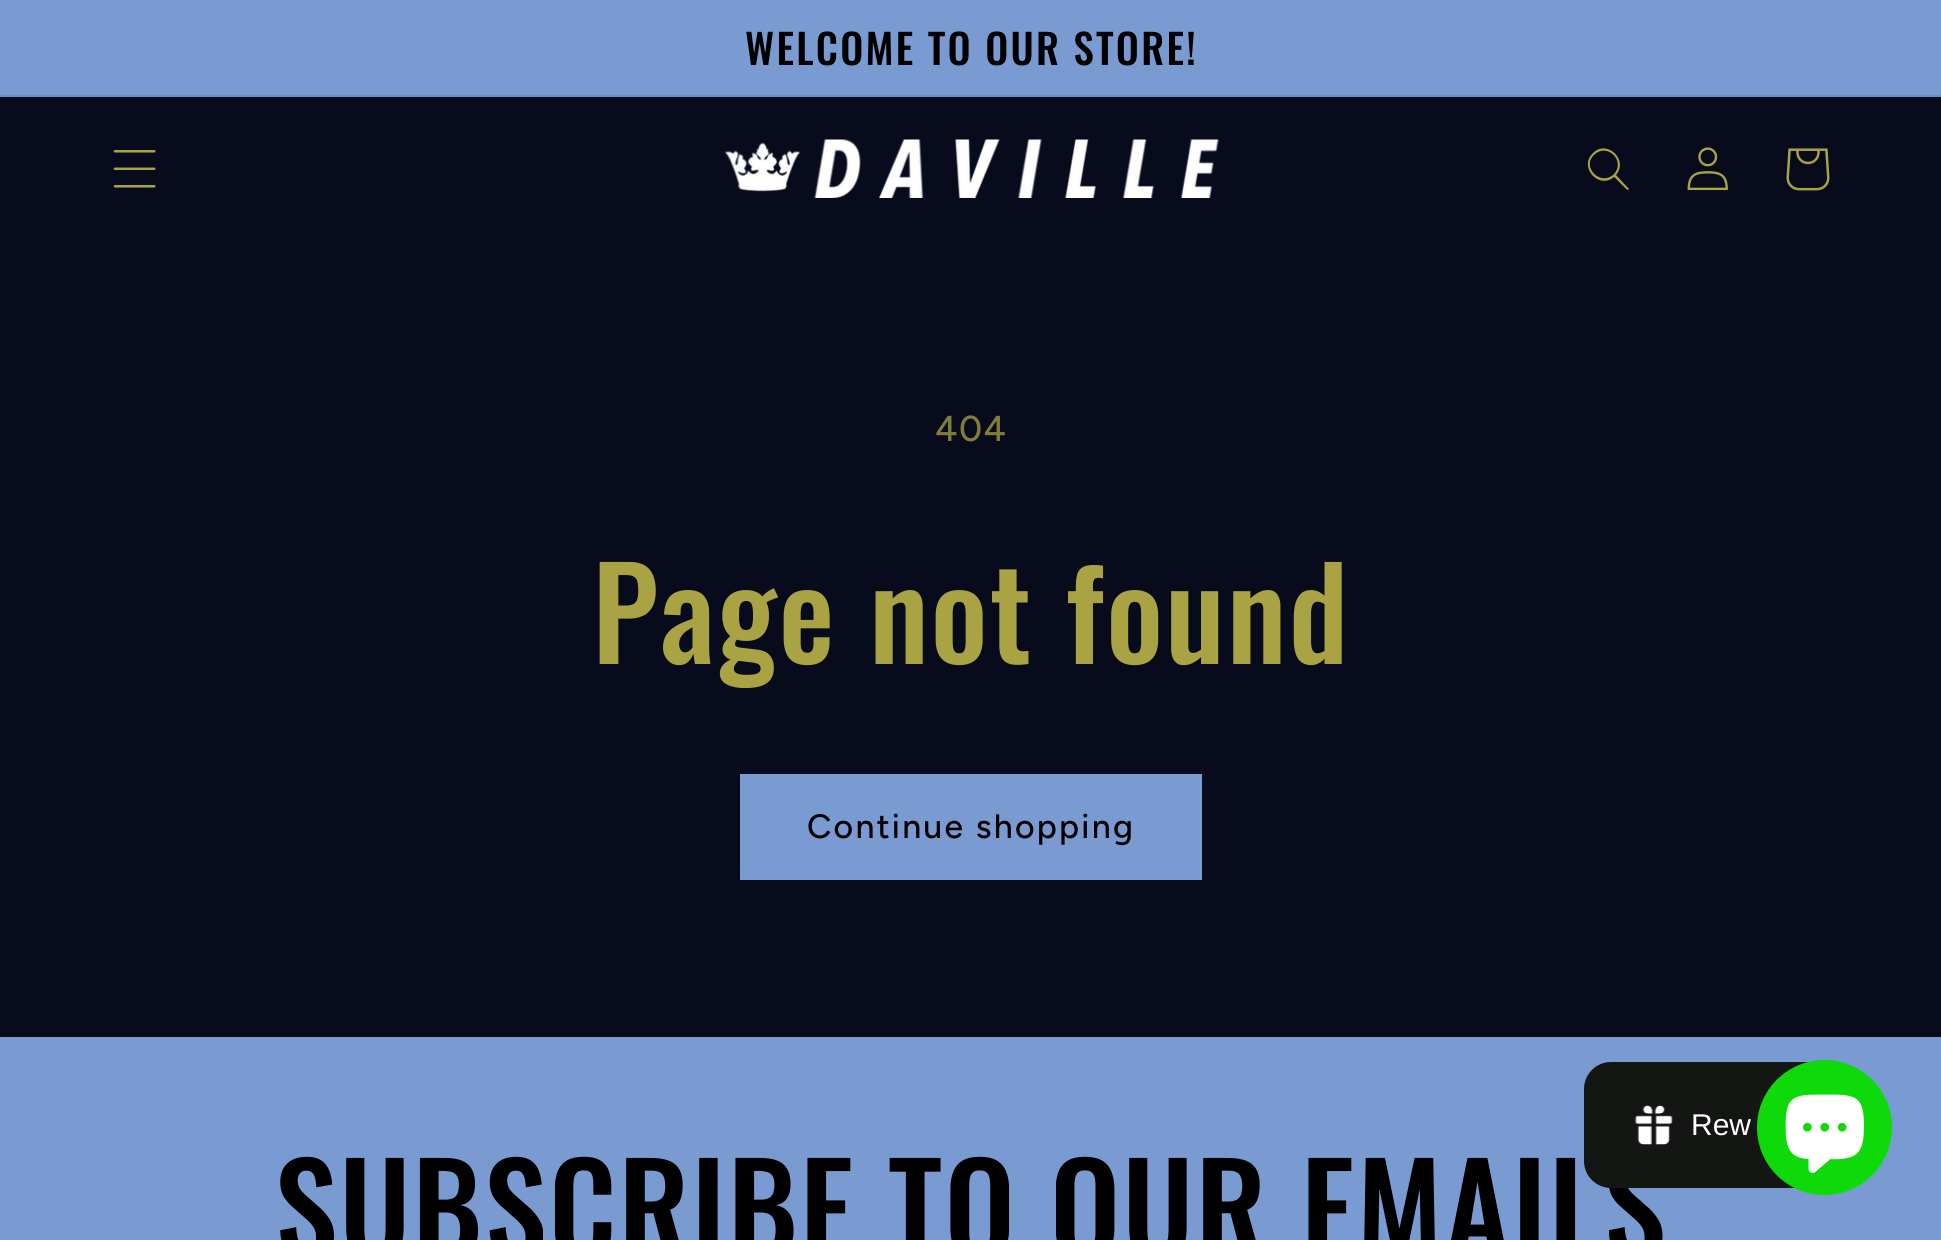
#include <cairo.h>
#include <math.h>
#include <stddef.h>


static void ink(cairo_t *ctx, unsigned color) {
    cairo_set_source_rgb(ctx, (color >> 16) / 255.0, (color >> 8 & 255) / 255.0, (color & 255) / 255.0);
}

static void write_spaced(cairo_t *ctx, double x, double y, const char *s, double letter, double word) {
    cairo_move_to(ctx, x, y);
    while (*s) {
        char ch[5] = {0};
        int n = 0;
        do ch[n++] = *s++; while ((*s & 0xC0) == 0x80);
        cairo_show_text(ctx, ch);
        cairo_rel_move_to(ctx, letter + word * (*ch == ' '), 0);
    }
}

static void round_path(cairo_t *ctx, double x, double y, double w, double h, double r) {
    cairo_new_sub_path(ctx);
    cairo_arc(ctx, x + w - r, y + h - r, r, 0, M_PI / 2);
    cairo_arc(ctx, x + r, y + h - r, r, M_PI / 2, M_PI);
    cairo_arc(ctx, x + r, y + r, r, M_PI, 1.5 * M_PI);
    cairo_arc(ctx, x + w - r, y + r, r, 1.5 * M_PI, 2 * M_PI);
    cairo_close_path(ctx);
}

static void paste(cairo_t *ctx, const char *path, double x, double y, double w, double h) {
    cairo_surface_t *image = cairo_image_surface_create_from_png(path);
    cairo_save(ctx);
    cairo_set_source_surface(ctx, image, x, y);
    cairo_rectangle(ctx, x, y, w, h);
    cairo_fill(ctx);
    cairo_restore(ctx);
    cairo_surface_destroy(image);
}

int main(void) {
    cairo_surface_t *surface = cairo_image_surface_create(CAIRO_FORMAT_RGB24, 1941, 1240);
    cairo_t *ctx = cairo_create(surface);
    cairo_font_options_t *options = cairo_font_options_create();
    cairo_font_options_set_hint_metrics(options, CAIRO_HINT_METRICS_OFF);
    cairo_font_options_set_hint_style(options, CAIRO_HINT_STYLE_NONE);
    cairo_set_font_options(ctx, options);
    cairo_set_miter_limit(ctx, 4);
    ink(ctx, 0x080B1B);
    cairo_paint(ctx);
    ink(ctx, 0x799BD2);
    cairo_rectangle(ctx, 0, 0, 1941, 95);
    cairo_fill(ctx);
    ink(ctx, 0x6F8FC1);
    cairo_rectangle(ctx, 0, 95, 1941, 2);
    cairo_fill(ctx);
    cairo_select_font_face(ctx, "Oswald Medium", CAIRO_FONT_SLANT_NORMAL, CAIRO_FONT_WEIGHT_NORMAL);
    cairo_set_font_size(ctx, 41);
    ink(ctx, 0x000000);
    write_spaced(ctx, 745, 65, "WELCOME TO OUR STORE!", 2.25, 0);
    paste(ctx, "media/1.png", 113, 150, 43, 38);
    paste(ctx, "media/2.png", 724, 139, 495, 59);
    ink(ctx, 0xA9A343);
    cairo_set_fill_rule(ctx, CAIRO_FILL_RULE_EVEN_ODD);
    cairo_new_path(ctx);
    cairo_move_to(ctx, 1614, 174);
    cairo_curve_to(ctx, 1601, 187, 1581, 167, 1594, 155);
    cairo_curve_to(ctx, 1607, 142, 1626, 161, 1614, 174);
    cairo_close_path(ctx);
    cairo_move_to(ctx, 1614, 177);
    cairo_curve_to(ctx, 1599, 190, 1578, 167, 1593, 153);
    cairo_curve_to(ctx, 1607, 139, 1629, 160, 1616, 175);
    cairo_line_to(ctx, 1629, 189);
    cairo_line_to(ctx, 1628, 190);
    cairo_curve_to(ctx, 1627, 191, 1616, 178, 1614, 177);
    cairo_close_path(ctx);
    cairo_fill(ctx);
    paste(ctx, "media/3.png", 1687, 147, 41, 44);
    paste(ctx, "media/4.png", 1786, 148, 44, 43);
    cairo_select_font_face(ctx, "Figtree Medium", CAIRO_FONT_SLANT_NORMAL, CAIRO_FONT_WEIGHT_NORMAL);
    cairo_set_font_size(ctx, 36);
    ink(ctx, 0x817D39);
    write_spaced(ctx, 935, 441, "404", 1.5, 0);
    cairo_select_font_face(ctx, "Oswald Medium", CAIRO_FONT_SLANT_NORMAL, CAIRO_FONT_WEIGHT_NORMAL);
    cairo_set_font_size(ctx, 126);
    ink(ctx, 0xA9A343);
    write_spaced(ctx, 592, 664, "Page not found", 1.9, 0);
    ink(ctx, 0x799BD2);
    cairo_rectangle(ctx, 740, 774, 462, 106);
    cairo_fill(ctx);
    cairo_select_font_face(ctx, "Figtree Medium", CAIRO_FONT_SLANT_NORMAL, CAIRO_FONT_WEIGHT_NORMAL);
    cairo_set_font_size(ctx, 33.75);
    ink(ctx, 0x000000);
    write_spaced(ctx, 807, 838, "Continue shopping", 2.25, 0);
    ink(ctx, 0x799BD2);
    cairo_rectangle(ctx, 0, 1037, 1941, 203);
    cairo_fill(ctx);
    cairo_select_font_face(ctx, "Oswald Medium", CAIRO_FONT_SLANT_NORMAL, CAIRO_FONT_WEIGHT_NORMAL);
    cairo_set_font_size(ctx, 126);
    ink(ctx, 0x000000);
    write_spaced(ctx, 275, 1260, "SUBSCRIBE TO OUR EMAILS", 1.9, 0);
    ink(ctx, 0x141614);
    round_path(ctx, 1584, 1062, 268, 126, 27);
    cairo_fill(ctx);
    paste(ctx, "media/5.png", 1634, 1105, 39, 40);
    cairo_select_font_face(ctx, "Liberation Sans", CAIRO_FONT_SLANT_NORMAL, CAIRO_FONT_WEIGHT_NORMAL);
    cairo_set_font_size(ctx, 30);
    ink(ctx, 0xFFFFFF);
    cairo_move_to(ctx, 1691, 1135);
    cairo_show_text(ctx, "Rew");
    ink(ctx, 0x0EDA0A);
    cairo_new_path(ctx);
    cairo_arc(ctx, 1824.5, 1127.5, 67.5, 0, 2 * M_PI);
    cairo_fill(ctx);
    paste(ctx, "media/6.png", 1785, 1094, 79, 79);
    cairo_surface_write_to_png(surface, "image.png");
    cairo_font_options_destroy(options);
    cairo_destroy(ctx);
    cairo_surface_destroy(surface);
    return 0;
}
